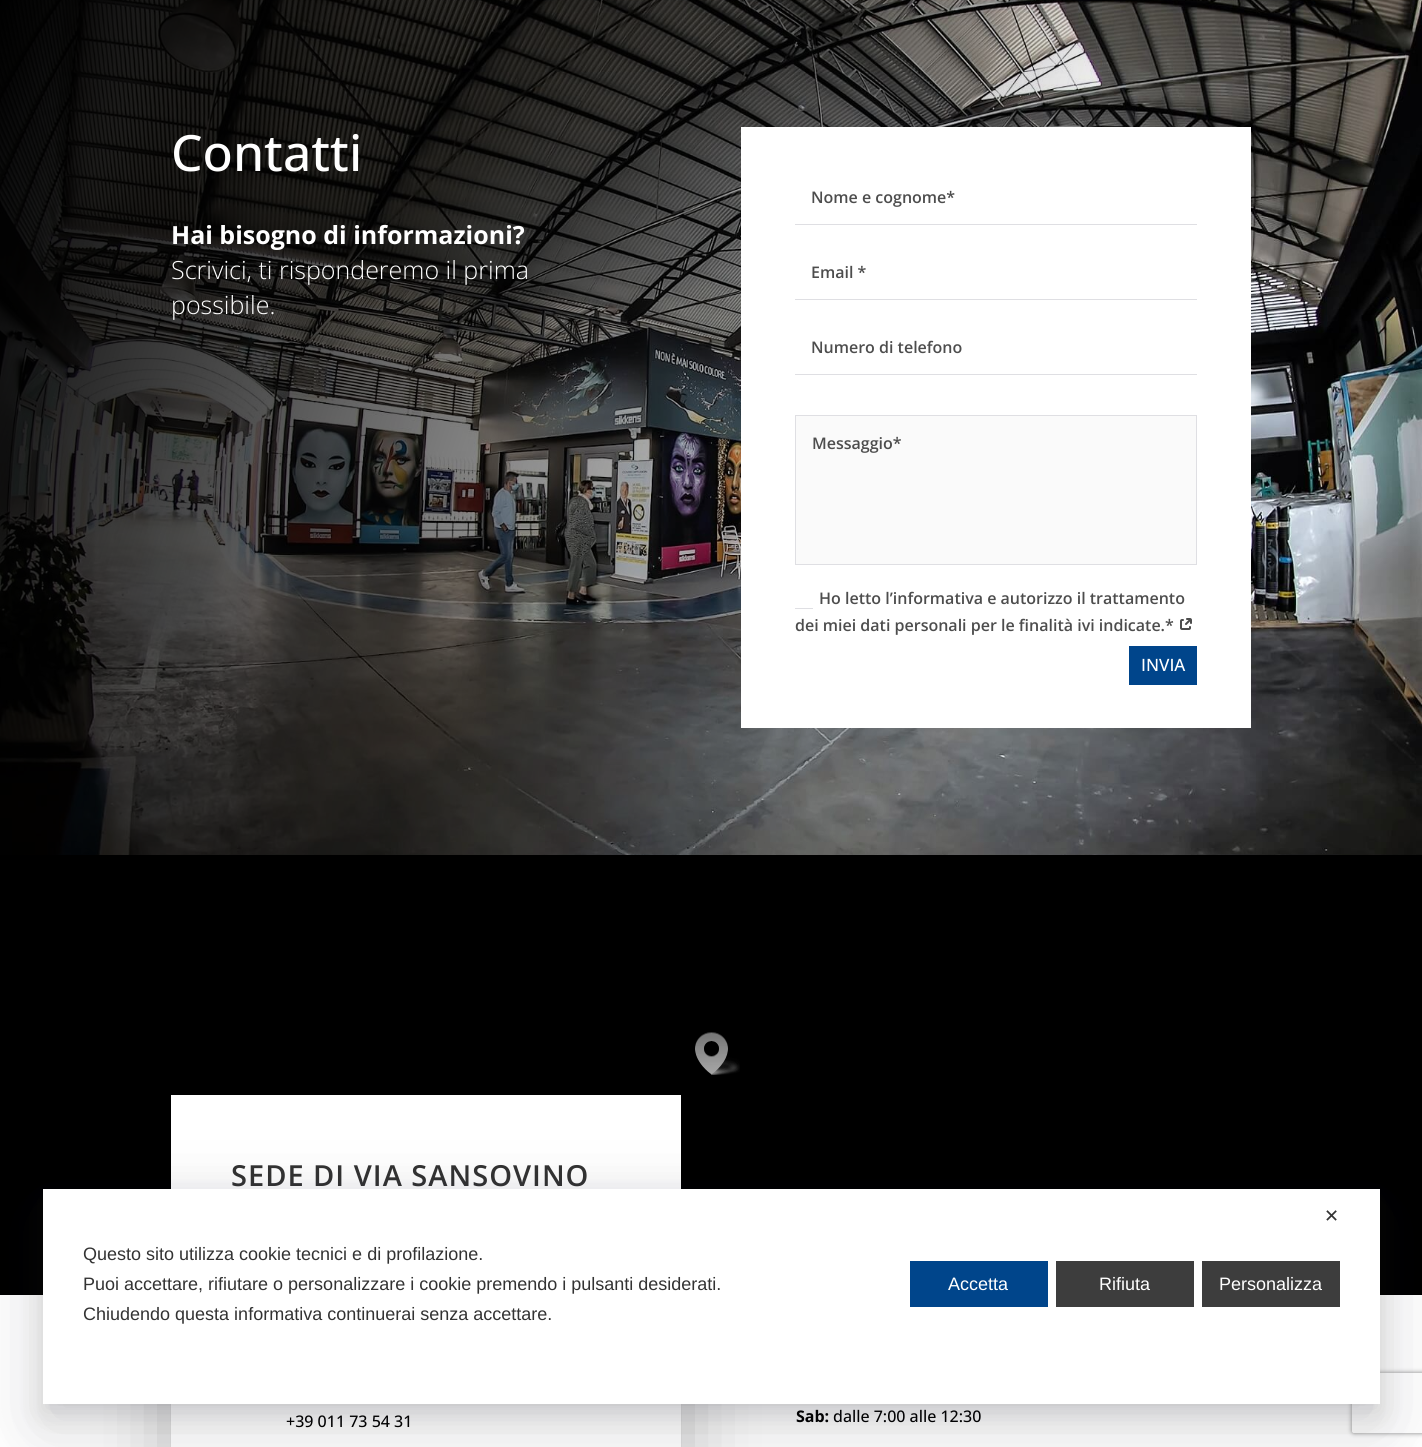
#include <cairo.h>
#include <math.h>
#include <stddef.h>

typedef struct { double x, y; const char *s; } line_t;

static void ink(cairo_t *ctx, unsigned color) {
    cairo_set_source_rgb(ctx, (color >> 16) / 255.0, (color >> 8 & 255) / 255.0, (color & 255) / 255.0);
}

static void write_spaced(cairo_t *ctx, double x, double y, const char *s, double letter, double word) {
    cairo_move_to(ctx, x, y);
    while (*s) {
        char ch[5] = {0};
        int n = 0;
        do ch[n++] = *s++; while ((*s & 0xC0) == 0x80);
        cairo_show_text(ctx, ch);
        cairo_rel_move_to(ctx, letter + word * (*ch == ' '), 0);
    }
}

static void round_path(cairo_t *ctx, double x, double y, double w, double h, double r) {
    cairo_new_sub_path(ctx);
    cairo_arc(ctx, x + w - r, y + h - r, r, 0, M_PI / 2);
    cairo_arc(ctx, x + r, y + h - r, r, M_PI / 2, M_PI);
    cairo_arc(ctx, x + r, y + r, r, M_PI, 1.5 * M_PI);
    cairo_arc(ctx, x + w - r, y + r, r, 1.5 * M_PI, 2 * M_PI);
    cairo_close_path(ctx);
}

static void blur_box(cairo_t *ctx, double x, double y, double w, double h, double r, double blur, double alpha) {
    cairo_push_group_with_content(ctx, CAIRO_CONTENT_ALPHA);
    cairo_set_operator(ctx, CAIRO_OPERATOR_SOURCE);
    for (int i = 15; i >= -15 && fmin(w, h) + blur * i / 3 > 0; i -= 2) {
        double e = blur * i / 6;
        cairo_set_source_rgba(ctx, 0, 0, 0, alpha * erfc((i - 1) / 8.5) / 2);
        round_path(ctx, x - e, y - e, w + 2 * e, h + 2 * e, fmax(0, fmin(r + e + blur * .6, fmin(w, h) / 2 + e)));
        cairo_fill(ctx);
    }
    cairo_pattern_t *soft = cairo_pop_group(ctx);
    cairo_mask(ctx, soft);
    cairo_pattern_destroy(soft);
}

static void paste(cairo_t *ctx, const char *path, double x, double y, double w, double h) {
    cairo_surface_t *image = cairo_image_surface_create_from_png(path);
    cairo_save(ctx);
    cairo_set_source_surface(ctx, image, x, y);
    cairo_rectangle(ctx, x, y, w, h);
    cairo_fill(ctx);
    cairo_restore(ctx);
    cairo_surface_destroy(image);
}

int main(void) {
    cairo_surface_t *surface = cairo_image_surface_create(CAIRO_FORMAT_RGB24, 1422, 1447);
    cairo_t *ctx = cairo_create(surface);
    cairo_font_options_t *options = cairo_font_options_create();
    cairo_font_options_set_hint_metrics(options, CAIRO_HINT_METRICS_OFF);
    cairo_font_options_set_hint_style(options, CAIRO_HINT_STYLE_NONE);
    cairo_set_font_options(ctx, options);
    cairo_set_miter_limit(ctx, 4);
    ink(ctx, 0xFFFFFF);
    cairo_paint(ctx);
    paste(ctx, "media/1.png", 0, 0, 1422, 855);
    cairo_select_font_face(ctx, "Open Sans Medium", CAIRO_FONT_SLANT_NORMAL, CAIRO_FONT_WEIGHT_NORMAL);
    cairo_set_font_size(ctx, 50);
    ink(ctx, 0xFFFFFF);
    cairo_move_to(ctx, 171, 171);
    cairo_show_text(ctx, "Contatti");
    cairo_select_font_face(ctx, "Open Sans", CAIRO_FONT_SLANT_NORMAL, CAIRO_FONT_WEIGHT_BOLD);
    cairo_set_font_size(ctx, 25);
    cairo_move_to(ctx, 171, 244);
    cairo_show_text(ctx, "Hai bisogno di informazioni?");
    cairo_select_font_face(ctx, "Open Sans Light", CAIRO_FONT_SLANT_NORMAL, CAIRO_FONT_WEIGHT_NORMAL);
    cairo_move_to(ctx, 171, 279);
    cairo_show_text(ctx, "Scrivici, ti risponderemo il prima");
    cairo_move_to(ctx, 171, 314);
    cairo_show_text(ctx, "possibile.");
    cairo_rectangle(ctx, 741, 127, 510, 601);
    cairo_fill(ctx);
    ink(ctx, 0xDFDFE3);
    cairo_rectangle(ctx, 795, 224, 402, 1);
    cairo_fill(ctx);
    cairo_select_font_face(ctx, "Open Sans SemiBold", CAIRO_FONT_SLANT_NORMAL, CAIRO_FONT_WEIGHT_NORMAL);
    cairo_set_font_size(ctx, 16);
    ink(ctx, 0x4D4D4D);
    cairo_move_to(ctx, 811, 203);
    cairo_show_text(ctx, "Nome e cognome*");
    ink(ctx, 0xDFDFE3);
    cairo_rectangle(ctx, 795, 299, 402, 1);
    cairo_fill(ctx);
    ink(ctx, 0x4D4D4D);
    cairo_move_to(ctx, 811, 278);
    cairo_show_text(ctx, "Email *");
    ink(ctx, 0xDFDFE3);
    cairo_rectangle(ctx, 795, 374, 402, 1);
    cairo_fill(ctx);
    ink(ctx, 0x4D4D4D);
    cairo_move_to(ctx, 811, 353);
    cairo_show_text(ctx, "Numero di telefono");
    ink(ctx, 0xFAFAFA);
    cairo_rectangle(ctx, 795.5, 415.5, 401, 149);
    cairo_fill_preserve(ctx);
    ink(ctx, 0xDFDFE3);
    cairo_set_line_width(ctx, 1);
    cairo_stroke(ctx);
    ink(ctx, 0x4D4D4D);
    cairo_move_to(ctx, 812, 449);
    cairo_show_text(ctx, "Messaggio*");
    cairo_move_to(ctx, 819, 604);
    cairo_show_text(ctx, "Ho letto l’informativa e autorizzo il trattamento");
    ink(ctx, 0xDFDFE3);
    cairo_rectangle(ctx, 795, 608, 18, 1);
    cairo_fill(ctx);
    ink(ctx, 0x4D4D4D);
    cairo_move_to(ctx, 795, 631);
    cairo_show_text(ctx, "dei miei dati personali per le finalità ivi indicate.*");
    paste(ctx, "media/2.png", 1180, 618, 12, 12);
    ink(ctx, 0x00458B);
    cairo_rectangle(ctx, 1129, 646, 68, 39);
    cairo_fill(ctx);
    cairo_select_font_face(ctx, "Open Sans Medium", CAIRO_FONT_SLANT_NORMAL, CAIRO_FONT_WEIGHT_NORMAL);
    cairo_set_font_size(ctx, 17);
    ink(ctx, 0xFFFFFF);
    cairo_move_to(ctx, 1141, 671);
    cairo_show_text(ctx, "INVIA");
    ink(ctx, 0x000000);
    cairo_rectangle(ctx, 0, 855, 1422, 440);
    cairo_fill(ctx);
    paste(ctx, "media/3.png", 695, 1032, 45, 43);
    ink(ctx, 0x000000);
    blur_box(ctx, 177, 1116, 498, 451, 0, 40, 0.3);
    ink(ctx, 0xFFFFFF);
    cairo_rectangle(ctx, 171, 1095, 510, 352);
    cairo_fill(ctx);
    cairo_select_font_face(ctx, "Open Sans SemiBold", CAIRO_FONT_SLANT_NORMAL, CAIRO_FONT_WEIGHT_NORMAL);
    cairo_set_font_size(ctx, 29);
    ink(ctx, 0x333333);
    write_spaced(ctx, 231, 1186, "SEDE DI VIA SANSOVINO", 1, 0);
    cairo_select_font_face(ctx, "Open Sans Medium", CAIRO_FONT_SLANT_NORMAL, CAIRO_FONT_WEIGHT_NORMAL);
    cairo_set_font_size(ctx, 16);
    ink(ctx, 0x000000);
    cairo_move_to(ctx, 286, 1427);
    cairo_show_text(ctx, "+39 011 73 54 31");
    cairo_select_font_face(ctx, "Open Sans", CAIRO_FONT_SLANT_NORMAL, CAIRO_FONT_WEIGHT_BOLD);
    cairo_move_to(ctx, 796, 1422);
    cairo_show_text(ctx, "Sab:");
    cairo_select_font_face(ctx, "Open Sans Medium", CAIRO_FONT_SLANT_NORMAL, CAIRO_FONT_WEIGHT_NORMAL);
    cairo_move_to(ctx, 833, 1422);
    cairo_show_text(ctx, "dalle 7:00 alle 12:30");
    ink(ctx, 0x11111A);
    blur_box(ctx, 43, 1213, 1337, 215, 0, 40, 0.1);
    blur_box(ctx, 43, 1205, 1337, 215, 0, 28, 0.1);
    blur_box(ctx, 43, 1197, 1337, 215, 0, 12, 0.1);
    cairo_save(ctx);
    cairo_set_fill_rule(ctx, CAIRO_FILL_RULE_EVEN_ODD);
    cairo_new_path(ctx);
    cairo_move_to(ctx, 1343, 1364);
    cairo_line_to(ctx, 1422, 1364);
    cairo_line_to(ctx, 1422, 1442);
    cairo_line_to(ctx, 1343, 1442);
    cairo_close_path(ctx);
    cairo_move_to(ctx, 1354, 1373);
    cairo_line_to(ctx, 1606, 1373);
    cairo_curve_to(ctx, 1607, 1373, 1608, 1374, 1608, 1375);
    cairo_line_to(ctx, 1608, 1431);
    cairo_curve_to(ctx, 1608, 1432, 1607, 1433, 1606, 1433);
    cairo_line_to(ctx, 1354, 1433);
    cairo_curve_to(ctx, 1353, 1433, 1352, 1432, 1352, 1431);
    cairo_line_to(ctx, 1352, 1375);
    cairo_curve_to(ctx, 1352, 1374, 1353, 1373, 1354, 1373);
    cairo_close_path(ctx);
    cairo_clip(ctx);
    ink(ctx, 0x808080);
    blur_box(ctx, 1352, 1373, 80, 60, 2, 2.5, 1);
    cairo_restore(ctx);
    ink(ctx, 0xFFFFFF);
    cairo_rectangle(ctx, 43, 1189, 1337, 215);
    cairo_fill(ctx);
    cairo_select_font_face(ctx, "DejaVu Sans", CAIRO_FONT_SLANT_NORMAL, CAIRO_FONT_WEIGHT_NORMAL);
    cairo_set_font_size(ctx, 18);
    ink(ctx, 0x333333);
    cairo_move_to(ctx, 1324, 1222);
    cairo_show_text(ctx, "✕");
    cairo_select_font_face(ctx, "Liberation Sans", CAIRO_FONT_SLANT_NORMAL, CAIRO_FONT_WEIGHT_NORMAL);
    {
        static const line_t items[] = {
            {83, 1260, "Questo sito utilizza cookie tecnici e di profilazione."},
            {83, 1290, "Puoi accettare, rifiutare o personalizzare i cookie premendo i pulsanti desiderati."},
            {83, 1320, "Chiudendo questa informativa continuerai senza accettare."},
        };
        for (size_t i = 0; i < sizeof items / sizeof *items; i++) {
            cairo_move_to(ctx, items[i].x, items[i].y);
            cairo_show_text(ctx, items[i].s);
        }
    }
    ink(ctx, 0x00458B);
    cairo_rectangle(ctx, 910, 1261, 138, 46);
    cairo_fill(ctx);
    ink(ctx, 0xFFFFFF);
    cairo_move_to(ctx, 948, 1290);
    cairo_show_text(ctx, "Accetta");
    ink(ctx, 0x3D3D3D);
    cairo_rectangle(ctx, 1056, 1261, 138, 46);
    cairo_fill(ctx);
    ink(ctx, 0xFFFFFF);
    cairo_move_to(ctx, 1099, 1290);
    cairo_show_text(ctx, "Rifiuta");
    ink(ctx, 0x3D3D3D);
    cairo_rectangle(ctx, 1202, 1261, 138, 46);
    cairo_fill(ctx);
    ink(ctx, 0xFFFFFF);
    cairo_move_to(ctx, 1219, 1290);
    cairo_show_text(ctx, "Personalizza");
    cairo_surface_write_to_png(surface, "image.png");
    cairo_font_options_destroy(options);
    cairo_destroy(ctx);
    cairo_surface_destroy(surface);
    return 0;
}
